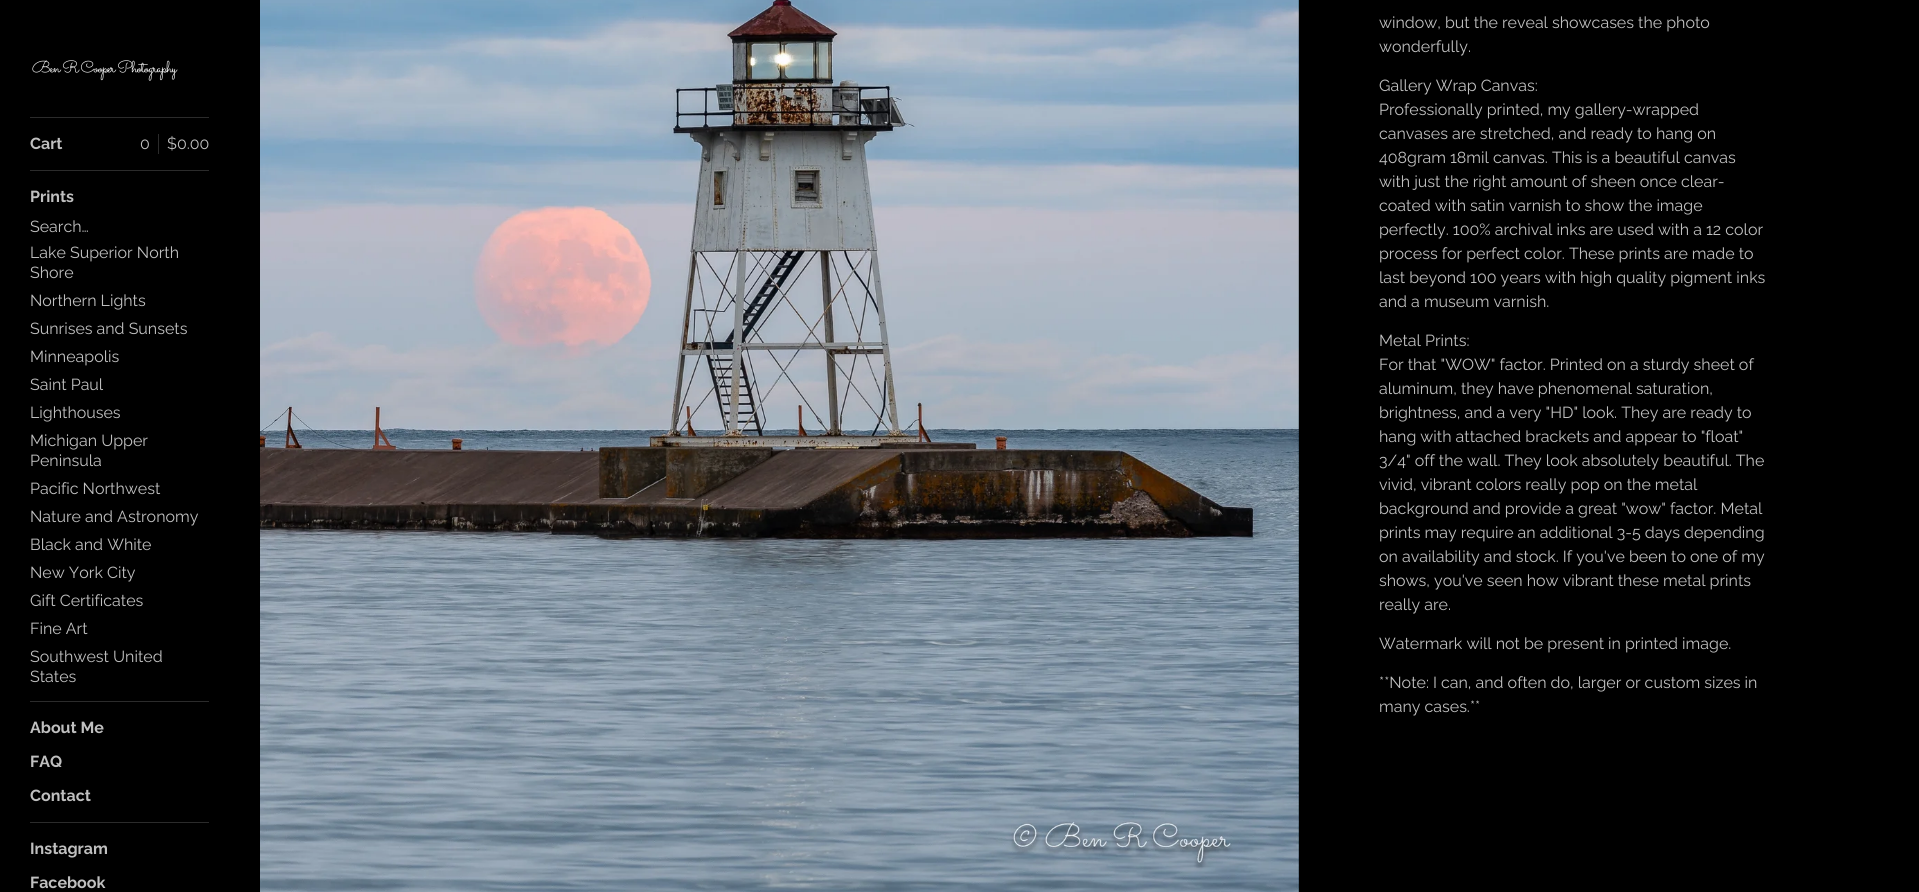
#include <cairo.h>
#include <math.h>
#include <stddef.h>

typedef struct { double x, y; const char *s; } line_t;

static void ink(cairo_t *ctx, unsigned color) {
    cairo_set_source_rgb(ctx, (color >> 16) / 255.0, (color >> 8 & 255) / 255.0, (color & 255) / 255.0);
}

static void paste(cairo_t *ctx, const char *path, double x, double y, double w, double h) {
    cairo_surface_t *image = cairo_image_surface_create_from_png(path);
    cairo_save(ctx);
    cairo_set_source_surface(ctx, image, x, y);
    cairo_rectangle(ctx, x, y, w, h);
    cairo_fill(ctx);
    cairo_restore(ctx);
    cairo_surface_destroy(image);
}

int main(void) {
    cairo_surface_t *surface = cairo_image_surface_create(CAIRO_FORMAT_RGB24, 1919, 892);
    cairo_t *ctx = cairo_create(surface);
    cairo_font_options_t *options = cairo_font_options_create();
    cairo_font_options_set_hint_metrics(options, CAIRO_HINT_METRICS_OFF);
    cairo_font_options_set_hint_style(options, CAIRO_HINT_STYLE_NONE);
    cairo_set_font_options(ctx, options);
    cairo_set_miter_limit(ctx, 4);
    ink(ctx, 0x000000);
    cairo_paint(ctx);
    paste(ctx, "media/1.png", 32, 60, 146, 21);
    ink(ctx, 0x2B2B2B);
    cairo_rectangle(ctx, 30, 117, 179, 1);
    cairo_fill(ctx);
    cairo_select_font_face(ctx, "Raleway", CAIRO_FONT_SLANT_NORMAL, CAIRO_FONT_WEIGHT_BOLD);
    cairo_set_font_size(ctx, 16);
    ink(ctx, 0xBFBFBF);
    cairo_move_to(ctx, 30, 149);
    cairo_show_text(ctx, "Cart");
    cairo_select_font_face(ctx, "Raleway", CAIRO_FONT_SLANT_NORMAL, CAIRO_FONT_WEIGHT_NORMAL);
    cairo_move_to(ctx, 140, 149);
    cairo_show_text(ctx, "0");
    ink(ctx, 0x2B2B2B);
    cairo_rectangle(ctx, 158, 134, 1, 20);
    cairo_fill(ctx);
    ink(ctx, 0xBFBFBF);
    cairo_move_to(ctx, 167, 149);
    cairo_show_text(ctx, "$0.00");
    ink(ctx, 0x2B2B2B);
    cairo_rectangle(ctx, 30, 170, 179, 1);
    cairo_fill(ctx);
    cairo_select_font_face(ctx, "Raleway", CAIRO_FONT_SLANT_NORMAL, CAIRO_FONT_WEIGHT_BOLD);
    ink(ctx, 0xBFBFBF);
    cairo_move_to(ctx, 30, 202);
    cairo_show_text(ctx, "Prints");
    cairo_select_font_face(ctx, "Raleway", CAIRO_FONT_SLANT_NORMAL, CAIRO_FONT_WEIGHT_NORMAL);
    {
        static const line_t items[] = {
            {30, 232, "Search…"},
            {30, 258, "Lake Superior North"},
            {30, 278, "Shore"},
            {30, 306, "Northern Lights"},
            {30, 334, "Sunrises and Sunsets"},
            {30, 362, "Minneapolis"},
            {30, 390, "Saint Paul"},
            {30, 418, "Lighthouses"},
            {30, 446, "Michigan Upper"},
            {30, 466, "Peninsula"},
            {30, 494, "Pacific Northwest"},
            {30, 522, "Nature and Astronomy"},
            {30, 550, "Black and White"},
            {30, 578, "New York City"},
            {30, 606, "Gift Certificates"},
            {30, 634, "Fine Art"},
            {30, 662, "Southwest United"},
            {30, 682, "States"},
        };
        for (size_t i = 0; i < sizeof items / sizeof *items; i++) {
            cairo_move_to(ctx, items[i].x, items[i].y);
            cairo_show_text(ctx, items[i].s);
        }
    }
    ink(ctx, 0x2B2B2B);
    cairo_rectangle(ctx, 30, 701, 179, 1);
    cairo_fill(ctx);
    cairo_select_font_face(ctx, "Raleway", CAIRO_FONT_SLANT_NORMAL, CAIRO_FONT_WEIGHT_BOLD);
    ink(ctx, 0xBFBFBF);
    {
        static const line_t items[] = {
            {30, 733, "About Me"},
            {30, 767, "FAQ"},
            {30, 801, "Contact"},
        };
        for (size_t i = 0; i < sizeof items / sizeof *items; i++) {
            cairo_move_to(ctx, items[i].x, items[i].y);
            cairo_show_text(ctx, items[i].s);
        }
    }
    ink(ctx, 0x2B2B2B);
    cairo_rectangle(ctx, 30, 822, 179, 1);
    cairo_fill(ctx);
    ink(ctx, 0xBFBFBF);
    cairo_move_to(ctx, 30, 854);
    cairo_show_text(ctx, "Instagram");
    cairo_move_to(ctx, 30, 888);
    cairo_show_text(ctx, "Facebook");
    paste(ctx, "media/2.png", 260, 0, 1039, 892);
    cairo_select_font_face(ctx, "Raleway", CAIRO_FONT_SLANT_NORMAL, CAIRO_FONT_WEIGHT_NORMAL);
    {
        static const line_t items[] = {
            {1379, 28, "window, but the reveal showcases the photo"},
            {1379, 52, "wonderfully."},
            {1379, 91, "Gallery Wrap Canvas:"},
            {1379, 115, "Professionally printed, my gallery-wrapped"},
            {1379, 139, "canvases are stretched, and ready to hang on"},
            {1379, 163, "408gram 18mil canvas. This is a beautiful canvas"},
            {1379, 187, "with just the right amount of sheen once clear-"},
            {1379, 211, "coated with satin varnish to show the image"},
            {1379, 235, "perfectly. 100% archival inks are used with a 12 color"},
            {1379, 259, "process for perfect color. These prints are made to"},
            {1379, 283, "last beyond 100 years with high quality pigment inks"},
            {1379, 307, "and a museum varnish."},
            {1379, 346, "Metal Prints:"},
            {1379, 370, "For that \"WOW\" factor. Printed on a sturdy sheet of"},
            {1379, 394, "aluminum, they have phenomenal saturation,"},
            {1379, 418, "brightness, and a very \"HD\" look. They are ready to"},
            {1379, 442, "hang with attached brackets and appear to \"float\""},
            {1379, 466, "3/4\" off the wall. They look absolutely beautiful. The"},
            {1379, 490, "vivid, vibrant colors really pop on the metal"},
            {1379, 514, "background and provide a great \"wow\" factor. Metal"},
            {1379, 538, "prints may require an additional 3-5 days depending"},
            {1379, 562, "on availability and stock. If you've been to one of my"},
            {1379, 586, "shows, you've seen how vibrant these metal prints"},
            {1379, 610, "really are."},
            {1379, 649, "Watermark will not be present in printed image."},
            {1379, 688, "**Note: I can, and often do, larger or custom sizes in"},
            {1379, 712, "many cases.**"},
        };
        for (size_t i = 0; i < sizeof items / sizeof *items; i++) {
            cairo_move_to(ctx, items[i].x, items[i].y);
            cairo_show_text(ctx, items[i].s);
        }
    }
    cairo_surface_write_to_png(surface, "image.png");
    cairo_font_options_destroy(options);
    cairo_destroy(ctx);
    cairo_surface_destroy(surface);
    return 0;
}
